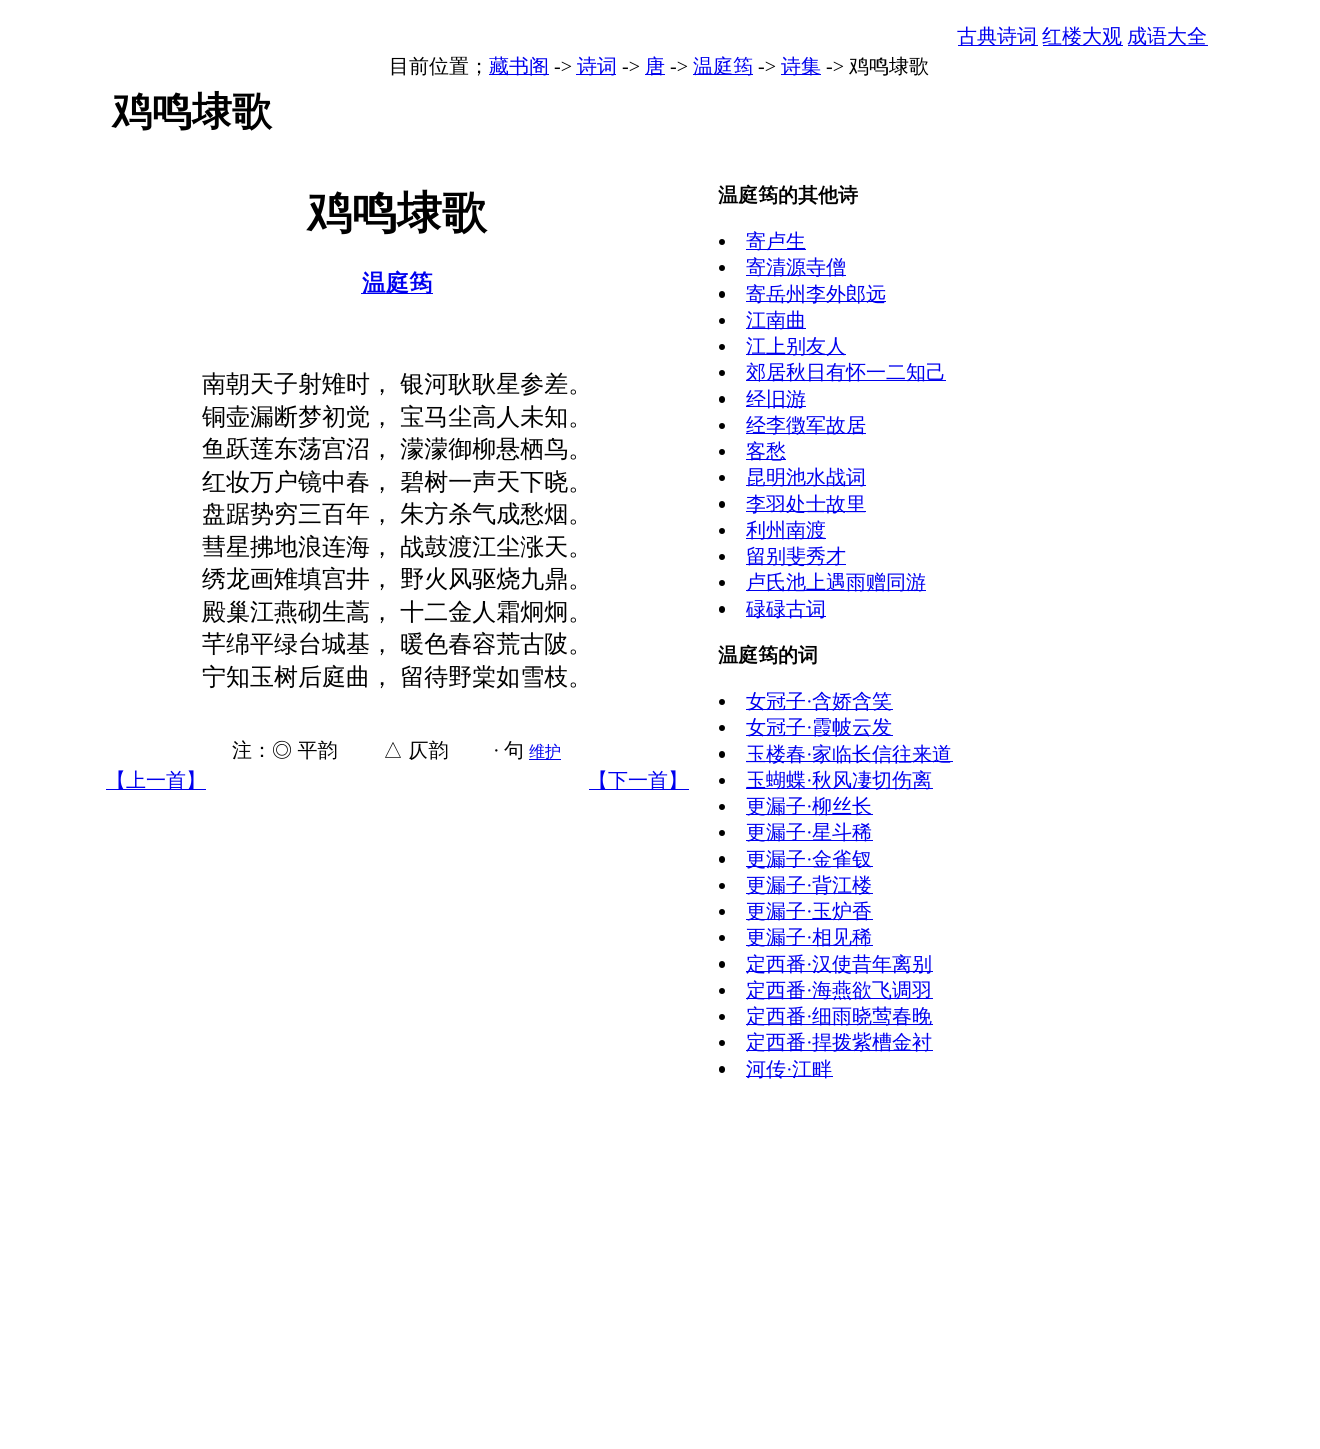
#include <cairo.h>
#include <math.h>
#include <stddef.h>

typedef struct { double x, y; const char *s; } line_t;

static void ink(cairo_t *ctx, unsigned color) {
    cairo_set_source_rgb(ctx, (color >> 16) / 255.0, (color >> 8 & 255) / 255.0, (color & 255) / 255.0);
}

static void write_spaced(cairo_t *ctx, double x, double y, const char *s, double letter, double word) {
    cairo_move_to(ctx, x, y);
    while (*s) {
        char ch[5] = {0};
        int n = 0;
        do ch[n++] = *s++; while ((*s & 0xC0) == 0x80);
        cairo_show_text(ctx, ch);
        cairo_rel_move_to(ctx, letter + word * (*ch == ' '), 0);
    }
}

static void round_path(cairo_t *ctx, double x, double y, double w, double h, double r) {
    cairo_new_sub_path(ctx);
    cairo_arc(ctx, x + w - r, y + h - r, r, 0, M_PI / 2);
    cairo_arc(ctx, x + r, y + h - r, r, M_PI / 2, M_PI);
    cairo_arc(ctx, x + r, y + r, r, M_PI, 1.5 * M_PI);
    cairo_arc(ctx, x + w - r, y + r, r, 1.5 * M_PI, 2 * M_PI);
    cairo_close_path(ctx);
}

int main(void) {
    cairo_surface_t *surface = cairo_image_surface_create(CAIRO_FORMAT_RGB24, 1320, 1449);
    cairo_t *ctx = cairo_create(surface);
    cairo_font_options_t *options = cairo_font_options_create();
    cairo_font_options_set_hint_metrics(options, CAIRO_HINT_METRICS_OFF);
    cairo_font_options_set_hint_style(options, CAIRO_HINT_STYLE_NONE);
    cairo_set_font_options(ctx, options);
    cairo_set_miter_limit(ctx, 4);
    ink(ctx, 0xFFFFFF);
    cairo_paint(ctx);
    ink(ctx, 0x0000EE);
    cairo_rectangle(ctx, 958, 45, 80, 1);
    cairo_fill(ctx);
    cairo_select_font_face(ctx, "WenQuanYi Zen Hei Medium", CAIRO_FONT_SLANT_NORMAL, CAIRO_FONT_WEIGHT_NORMAL);
    cairo_set_font_size(ctx, 20);
    cairo_move_to(ctx, 957, 43);
    cairo_show_text(ctx, "古典诗词");
    cairo_rectangle(ctx, 1043, 45, 80, 1);
    cairo_fill(ctx);
    cairo_move_to(ctx, 1042, 43);
    cairo_show_text(ctx, "红楼大观");
    cairo_rectangle(ctx, 1128, 45, 80, 1);
    cairo_fill(ctx);
    cairo_move_to(ctx, 1127, 43);
    cairo_show_text(ctx, "成语大全");
    ink(ctx, 0x000000);
    cairo_move_to(ctx, 389, 73);
    cairo_show_text(ctx, "目前位置；");
    ink(ctx, 0x0000EE);
    cairo_rectangle(ctx, 489, 74, 60, 1);
    cairo_fill(ctx);
    cairo_move_to(ctx, 489, 73);
    cairo_show_text(ctx, "藏书阁");
    cairo_select_font_face(ctx, "Liberation Serif", CAIRO_FONT_SLANT_NORMAL, CAIRO_FONT_WEIGHT_NORMAL);
    ink(ctx, 0x000000);
    cairo_move_to(ctx, 554, 73);
    cairo_show_text(ctx, "->");
    ink(ctx, 0x0000EE);
    cairo_rectangle(ctx, 576, 74, 40, 1);
    cairo_fill(ctx);
    cairo_select_font_face(ctx, "WenQuanYi Zen Hei Medium", CAIRO_FONT_SLANT_NORMAL, CAIRO_FONT_WEIGHT_NORMAL);
    cairo_move_to(ctx, 577, 73);
    cairo_show_text(ctx, "诗词");
    cairo_select_font_face(ctx, "Liberation Serif", CAIRO_FONT_SLANT_NORMAL, CAIRO_FONT_WEIGHT_NORMAL);
    ink(ctx, 0x000000);
    cairo_move_to(ctx, 622, 73);
    cairo_show_text(ctx, "->");
    ink(ctx, 0x0000EE);
    cairo_rectangle(ctx, 645, 74, 20, 1);
    cairo_fill(ctx);
    cairo_select_font_face(ctx, "WenQuanYi Zen Hei Medium", CAIRO_FONT_SLANT_NORMAL, CAIRO_FONT_WEIGHT_NORMAL);
    cairo_move_to(ctx, 645, 73);
    cairo_show_text(ctx, "唐");
    cairo_select_font_face(ctx, "Liberation Serif", CAIRO_FONT_SLANT_NORMAL, CAIRO_FONT_WEIGHT_NORMAL);
    ink(ctx, 0x000000);
    cairo_move_to(ctx, 670, 73);
    cairo_show_text(ctx, "->");
    ink(ctx, 0x0000EE);
    cairo_rectangle(ctx, 693, 74, 60, 1);
    cairo_fill(ctx);
    cairo_select_font_face(ctx, "WenQuanYi Zen Hei Medium", CAIRO_FONT_SLANT_NORMAL, CAIRO_FONT_WEIGHT_NORMAL);
    cairo_move_to(ctx, 693, 73);
    cairo_show_text(ctx, "温庭筠");
    cairo_select_font_face(ctx, "Liberation Serif", CAIRO_FONT_SLANT_NORMAL, CAIRO_FONT_WEIGHT_NORMAL);
    ink(ctx, 0x000000);
    cairo_move_to(ctx, 758, 73);
    cairo_show_text(ctx, "->");
    ink(ctx, 0x0000EE);
    cairo_rectangle(ctx, 781, 74, 40, 1);
    cairo_fill(ctx);
    cairo_select_font_face(ctx, "WenQuanYi Zen Hei Medium", CAIRO_FONT_SLANT_NORMAL, CAIRO_FONT_WEIGHT_NORMAL);
    cairo_move_to(ctx, 781, 73);
    cairo_show_text(ctx, "诗集");
    cairo_select_font_face(ctx, "Liberation Serif", CAIRO_FONT_SLANT_NORMAL, CAIRO_FONT_WEIGHT_NORMAL);
    ink(ctx, 0x000000);
    cairo_move_to(ctx, 826, 73);
    cairo_show_text(ctx, "->");
    cairo_select_font_face(ctx, "WenQuanYi Zen Hei Medium", CAIRO_FONT_SLANT_NORMAL, CAIRO_FONT_WEIGHT_NORMAL);
    cairo_move_to(ctx, 849, 73);
    cairo_show_text(ctx, "鸡鸣埭歌");
    cairo_select_font_face(ctx, "WenQuanYi Zen Hei", CAIRO_FONT_SLANT_NORMAL, CAIRO_FONT_WEIGHT_BOLD);
    cairo_set_font_size(ctx, 40);
    cairo_move_to(ctx, 112, 125);
    cairo_show_text(ctx, "鸡鸣埭歌");
    cairo_set_font_size(ctx, 45);
    cairo_move_to(ctx, 307, 228);
    cairo_show_text(ctx, "鸡鸣埭歌");
    ink(ctx, 0x0000EE);
    cairo_rectangle(ctx, 361, 293, 72, 1);
    cairo_fill(ctx);
    cairo_set_font_size(ctx, 23.5);
    cairo_move_to(ctx, 362, 291);
    cairo_show_text(ctx, "温庭筠");
    cairo_select_font_face(ctx, "WenQuanYi Zen Hei Medium", CAIRO_FONT_SLANT_NORMAL, CAIRO_FONT_WEIGHT_NORMAL);
    cairo_set_font_size(ctx, 24);
    ink(ctx, 0x000000);
    {
        static const line_t items[] = {
            {202, 392, "南朝天子射雉时， 银河耿耿星参差。"},
            {202, 425, "铜壶漏断梦初觉， 宝马尘高人未知。"},
            {202, 457, "鱼跃莲东荡宫沼， 濛濛御柳悬栖鸟。"},
            {202, 490, "红妆万户镜中春， 碧树一声天下晓。"},
            {202, 522, "盘踞势穷三百年， 朱方杀气成愁烟。"},
            {202, 555, "彗星拂地浪连海， 战鼓渡江尘涨天。"},
            {202, 587, "绣龙画雉填宫井， 野火风驱烧九鼎。"},
            {202, 620, "殿巢江燕砌生蒿， 十二金人霜炯炯。"},
            {202, 652, "芊绵平绿台城基， 暖色春容荒古陂。"},
            {202, 685, "宁知玉树后庭曲， 留待野棠如雪枝。"},
        };
        for (size_t i = 0; i < sizeof items / sizeof *items; i++) {
            write_spaced(ctx, items[i].x, items[i].y, items[i].s, 0, -1);
        }
    }
    cairo_set_font_size(ctx, 20);
    write_spaced(ctx, 232, 757, "注：◎ 平韵　　 △ 仄韵", 0, -0.5);
    cairo_select_font_face(ctx, "Liberation Serif", CAIRO_FONT_SLANT_NORMAL, CAIRO_FONT_WEIGHT_NORMAL);
    cairo_move_to(ctx, 493, 757);
    cairo_show_text(ctx, "·");
    cairo_select_font_face(ctx, "WenQuanYi Zen Hei Medium", CAIRO_FONT_SLANT_NORMAL, CAIRO_FONT_WEIGHT_NORMAL);
    cairo_move_to(ctx, 504, 757);
    cairo_show_text(ctx, "句");
    ink(ctx, 0x0000EE);
    cairo_rectangle(ctx, 529, 759, 32, 1);
    cairo_fill(ctx);
    cairo_set_font_size(ctx, 16);
    cairo_move_to(ctx, 529, 757);
    cairo_show_text(ctx, "维护");
    cairo_rectangle(ctx, 106, 789, 100, 1);
    cairo_fill(ctx);
    cairo_set_font_size(ctx, 20);
    cairo_move_to(ctx, 106, 787);
    cairo_show_text(ctx, "【上一首】");
    cairo_rectangle(ctx, 589, 789, 100, 1);
    cairo_fill(ctx);
    cairo_move_to(ctx, 588, 787);
    cairo_show_text(ctx, "【下一首】");
    cairo_select_font_face(ctx, "WenQuanYi Zen Hei", CAIRO_FONT_SLANT_NORMAL, CAIRO_FONT_WEIGHT_BOLD);
    ink(ctx, 0x000000);
    cairo_move_to(ctx, 718, 202);
    cairo_show_text(ctx, "温庭筠的其他诗");
    cairo_new_path(ctx);
    cairo_arc(ctx, 722, 242, 3, 0, 2 * M_PI);
    cairo_fill(ctx);
    ink(ctx, 0x0000EE);
    cairo_rectangle(ctx, 746, 249, 60, 1);
    cairo_fill(ctx);
    cairo_select_font_face(ctx, "WenQuanYi Zen Hei Medium", CAIRO_FONT_SLANT_NORMAL, CAIRO_FONT_WEIGHT_NORMAL);
    cairo_move_to(ctx, 746, 248);
    cairo_show_text(ctx, "寄卢生");
    ink(ctx, 0x000000);
    cairo_new_path(ctx);
    cairo_arc(ctx, 722, 268, 3, 0, 2 * M_PI);
    cairo_fill(ctx);
    ink(ctx, 0x0000EE);
    cairo_rectangle(ctx, 746, 275, 100, 1);
    cairo_fill(ctx);
    cairo_move_to(ctx, 746, 274);
    cairo_show_text(ctx, "寄清源寺僧");
    ink(ctx, 0x000000);
    round_path(ctx, 719, 291, 6, 7, 3);
    cairo_fill(ctx);
    ink(ctx, 0x0000EE);
    cairo_rectangle(ctx, 746, 301, 140, 1);
    cairo_fill(ctx);
    cairo_move_to(ctx, 746, 301);
    cairo_show_text(ctx, "寄岳州李外郎远");
    ink(ctx, 0x000000);
    cairo_new_path(ctx);
    cairo_arc(ctx, 722, 321, 3, 0, 2 * M_PI);
    cairo_fill(ctx);
    ink(ctx, 0x0000EE);
    cairo_rectangle(ctx, 746, 328, 60, 1);
    cairo_fill(ctx);
    cairo_move_to(ctx, 746, 327);
    cairo_show_text(ctx, "江南曲");
    ink(ctx, 0x000000);
    cairo_new_path(ctx);
    cairo_arc(ctx, 722, 347, 3, 0, 2 * M_PI);
    cairo_fill(ctx);
    ink(ctx, 0x0000EE);
    cairo_rectangle(ctx, 746, 354, 100, 1);
    cairo_fill(ctx);
    cairo_move_to(ctx, 746, 353);
    cairo_show_text(ctx, "江上别友人");
    ink(ctx, 0x000000);
    cairo_new_path(ctx);
    cairo_arc(ctx, 722, 373, 3, 0, 2 * M_PI);
    cairo_fill(ctx);
    ink(ctx, 0x0000EE);
    cairo_rectangle(ctx, 746, 380, 200, 1);
    cairo_fill(ctx);
    cairo_move_to(ctx, 746, 379);
    cairo_show_text(ctx, "郊居秋日有怀一二知己");
    ink(ctx, 0x000000);
    round_path(ctx, 719, 396, 6, 7, 3);
    cairo_fill(ctx);
    ink(ctx, 0x0000EE);
    cairo_rectangle(ctx, 746, 406, 60, 1);
    cairo_fill(ctx);
    cairo_move_to(ctx, 746, 406);
    cairo_show_text(ctx, "经旧游");
    ink(ctx, 0x000000);
    cairo_new_path(ctx);
    cairo_arc(ctx, 722, 426, 3, 0, 2 * M_PI);
    cairo_fill(ctx);
    ink(ctx, 0x0000EE);
    cairo_rectangle(ctx, 746, 433, 120, 1);
    cairo_fill(ctx);
    cairo_move_to(ctx, 746, 432);
    cairo_show_text(ctx, "经李徴军故居");
    ink(ctx, 0x000000);
    cairo_new_path(ctx);
    cairo_arc(ctx, 722, 452, 3, 0, 2 * M_PI);
    cairo_fill(ctx);
    ink(ctx, 0x0000EE);
    cairo_rectangle(ctx, 746, 459, 40, 1);
    cairo_fill(ctx);
    cairo_move_to(ctx, 746, 458);
    cairo_show_text(ctx, "客愁");
    ink(ctx, 0x000000);
    cairo_new_path(ctx);
    cairo_arc(ctx, 722, 478, 3, 0, 2 * M_PI);
    cairo_fill(ctx);
    ink(ctx, 0x0000EE);
    cairo_rectangle(ctx, 746, 485, 120, 1);
    cairo_fill(ctx);
    cairo_move_to(ctx, 746, 484);
    cairo_show_text(ctx, "昆明池水战词");
    ink(ctx, 0x000000);
    round_path(ctx, 719, 501, 6, 7, 3);
    cairo_fill(ctx);
    ink(ctx, 0x0000EE);
    cairo_rectangle(ctx, 746, 511, 120, 1);
    cairo_fill(ctx);
    cairo_move_to(ctx, 746, 511);
    cairo_show_text(ctx, "李羽处士故里");
    ink(ctx, 0x000000);
    cairo_new_path(ctx);
    cairo_arc(ctx, 722, 531, 3, 0, 2 * M_PI);
    cairo_fill(ctx);
    ink(ctx, 0x0000EE);
    cairo_rectangle(ctx, 746, 538, 80, 1);
    cairo_fill(ctx);
    cairo_move_to(ctx, 746, 537);
    cairo_show_text(ctx, "利州南渡");
    ink(ctx, 0x000000);
    cairo_new_path(ctx);
    cairo_arc(ctx, 722, 557, 3, 0, 2 * M_PI);
    cairo_fill(ctx);
    ink(ctx, 0x0000EE);
    cairo_rectangle(ctx, 746, 564, 100, 1);
    cairo_fill(ctx);
    cairo_move_to(ctx, 746, 563);
    cairo_show_text(ctx, "留别斐秀才");
    ink(ctx, 0x000000);
    cairo_new_path(ctx);
    cairo_arc(ctx, 722, 583, 3, 0, 2 * M_PI);
    cairo_fill(ctx);
    ink(ctx, 0x0000EE);
    cairo_rectangle(ctx, 746, 590, 180, 1);
    cairo_fill(ctx);
    cairo_move_to(ctx, 746, 589);
    cairo_show_text(ctx, "卢氏池上遇雨赠同游");
    ink(ctx, 0x000000);
    round_path(ctx, 719, 606, 6, 7, 3);
    cairo_fill(ctx);
    ink(ctx, 0x0000EE);
    cairo_rectangle(ctx, 746, 616, 80, 1);
    cairo_fill(ctx);
    cairo_move_to(ctx, 746, 616);
    cairo_show_text(ctx, "碌碌古词");
    cairo_select_font_face(ctx, "WenQuanYi Zen Hei", CAIRO_FONT_SLANT_NORMAL, CAIRO_FONT_WEIGHT_BOLD);
    ink(ctx, 0x000000);
    cairo_move_to(ctx, 718, 662);
    cairo_show_text(ctx, "温庭筠的词");
    cairo_new_path(ctx);
    cairo_arc(ctx, 722, 702, 3, 0, 2 * M_PI);
    cairo_fill(ctx);
    ink(ctx, 0x0000EE);
    cairo_rectangle(ctx, 746, 709, 147, 1);
    cairo_fill(ctx);
    cairo_select_font_face(ctx, "WenQuanYi Zen Hei Medium", CAIRO_FONT_SLANT_NORMAL, CAIRO_FONT_WEIGHT_NORMAL);
    cairo_move_to(ctx, 746, 708);
    cairo_show_text(ctx, "女冠子");
    cairo_select_font_face(ctx, "Liberation Serif", CAIRO_FONT_SLANT_NORMAL, CAIRO_FONT_WEIGHT_NORMAL);
    cairo_move_to(ctx, 806, 708);
    cairo_show_text(ctx, "·");
    cairo_select_font_face(ctx, "WenQuanYi Zen Hei Medium", CAIRO_FONT_SLANT_NORMAL, CAIRO_FONT_WEIGHT_NORMAL);
    cairo_move_to(ctx, 812, 708);
    cairo_show_text(ctx, "含娇含笑");
    ink(ctx, 0x000000);
    cairo_new_path(ctx);
    cairo_arc(ctx, 722, 728, 3, 0, 2 * M_PI);
    cairo_fill(ctx);
    ink(ctx, 0x0000EE);
    cairo_rectangle(ctx, 746, 735, 147, 1);
    cairo_fill(ctx);
    cairo_move_to(ctx, 746, 734);
    cairo_show_text(ctx, "女冠子");
    cairo_select_font_face(ctx, "Liberation Serif", CAIRO_FONT_SLANT_NORMAL, CAIRO_FONT_WEIGHT_NORMAL);
    cairo_move_to(ctx, 806, 734);
    cairo_show_text(ctx, "·");
    cairo_select_font_face(ctx, "WenQuanYi Zen Hei Medium", CAIRO_FONT_SLANT_NORMAL, CAIRO_FONT_WEIGHT_NORMAL);
    cairo_move_to(ctx, 812, 734);
    cairo_show_text(ctx, "霞帔云发");
    ink(ctx, 0x000000);
    round_path(ctx, 719, 751, 6, 7, 3);
    cairo_fill(ctx);
    ink(ctx, 0x0000EE);
    cairo_rectangle(ctx, 746, 761, 207, 1);
    cairo_fill(ctx);
    cairo_move_to(ctx, 746, 761);
    cairo_show_text(ctx, "玉楼春");
    cairo_select_font_face(ctx, "Liberation Serif", CAIRO_FONT_SLANT_NORMAL, CAIRO_FONT_WEIGHT_NORMAL);
    cairo_move_to(ctx, 806, 761);
    cairo_show_text(ctx, "·");
    cairo_select_font_face(ctx, "WenQuanYi Zen Hei Medium", CAIRO_FONT_SLANT_NORMAL, CAIRO_FONT_WEIGHT_NORMAL);
    cairo_move_to(ctx, 812, 761);
    cairo_show_text(ctx, "家临长信往来道");
    ink(ctx, 0x000000);
    cairo_new_path(ctx);
    cairo_arc(ctx, 722, 781, 3, 0, 2 * M_PI);
    cairo_fill(ctx);
    ink(ctx, 0x0000EE);
    cairo_rectangle(ctx, 746, 788, 187, 1);
    cairo_fill(ctx);
    cairo_move_to(ctx, 746, 787);
    cairo_show_text(ctx, "玉蝴蝶");
    cairo_select_font_face(ctx, "Liberation Serif", CAIRO_FONT_SLANT_NORMAL, CAIRO_FONT_WEIGHT_NORMAL);
    cairo_move_to(ctx, 806, 787);
    cairo_show_text(ctx, "·");
    cairo_select_font_face(ctx, "WenQuanYi Zen Hei Medium", CAIRO_FONT_SLANT_NORMAL, CAIRO_FONT_WEIGHT_NORMAL);
    cairo_move_to(ctx, 812, 787);
    cairo_show_text(ctx, "秋风凄切伤离");
    ink(ctx, 0x000000);
    cairo_new_path(ctx);
    cairo_arc(ctx, 722, 807, 3, 0, 2 * M_PI);
    cairo_fill(ctx);
    ink(ctx, 0x0000EE);
    cairo_rectangle(ctx, 746, 814, 127, 1);
    cairo_fill(ctx);
    cairo_move_to(ctx, 746, 813);
    cairo_show_text(ctx, "更漏子");
    cairo_select_font_face(ctx, "Liberation Serif", CAIRO_FONT_SLANT_NORMAL, CAIRO_FONT_WEIGHT_NORMAL);
    cairo_move_to(ctx, 806, 813);
    cairo_show_text(ctx, "·");
    cairo_select_font_face(ctx, "WenQuanYi Zen Hei Medium", CAIRO_FONT_SLANT_NORMAL, CAIRO_FONT_WEIGHT_NORMAL);
    cairo_move_to(ctx, 812, 813);
    cairo_show_text(ctx, "柳丝长");
    ink(ctx, 0x000000);
    cairo_new_path(ctx);
    cairo_arc(ctx, 722, 833, 3, 0, 2 * M_PI);
    cairo_fill(ctx);
    ink(ctx, 0x0000EE);
    cairo_rectangle(ctx, 746, 840, 127, 1);
    cairo_fill(ctx);
    cairo_move_to(ctx, 746, 839);
    cairo_show_text(ctx, "更漏子");
    cairo_select_font_face(ctx, "Liberation Serif", CAIRO_FONT_SLANT_NORMAL, CAIRO_FONT_WEIGHT_NORMAL);
    cairo_move_to(ctx, 806, 839);
    cairo_show_text(ctx, "·");
    cairo_select_font_face(ctx, "WenQuanYi Zen Hei Medium", CAIRO_FONT_SLANT_NORMAL, CAIRO_FONT_WEIGHT_NORMAL);
    cairo_move_to(ctx, 812, 839);
    cairo_show_text(ctx, "星斗稀");
    ink(ctx, 0x000000);
    round_path(ctx, 719, 856, 6, 7, 3);
    cairo_fill(ctx);
    ink(ctx, 0x0000EE);
    cairo_rectangle(ctx, 746, 866, 127, 1);
    cairo_fill(ctx);
    cairo_move_to(ctx, 746, 866);
    cairo_show_text(ctx, "更漏子");
    cairo_select_font_face(ctx, "Liberation Serif", CAIRO_FONT_SLANT_NORMAL, CAIRO_FONT_WEIGHT_NORMAL);
    cairo_move_to(ctx, 806, 866);
    cairo_show_text(ctx, "·");
    cairo_select_font_face(ctx, "WenQuanYi Zen Hei Medium", CAIRO_FONT_SLANT_NORMAL, CAIRO_FONT_WEIGHT_NORMAL);
    cairo_move_to(ctx, 812, 866);
    cairo_show_text(ctx, "金雀钗");
    ink(ctx, 0x000000);
    cairo_new_path(ctx);
    cairo_arc(ctx, 722, 886, 3, 0, 2 * M_PI);
    cairo_fill(ctx);
    ink(ctx, 0x0000EE);
    cairo_rectangle(ctx, 746, 893, 127, 1);
    cairo_fill(ctx);
    cairo_move_to(ctx, 746, 892);
    cairo_show_text(ctx, "更漏子");
    cairo_select_font_face(ctx, "Liberation Serif", CAIRO_FONT_SLANT_NORMAL, CAIRO_FONT_WEIGHT_NORMAL);
    cairo_move_to(ctx, 806, 892);
    cairo_show_text(ctx, "·");
    cairo_select_font_face(ctx, "WenQuanYi Zen Hei Medium", CAIRO_FONT_SLANT_NORMAL, CAIRO_FONT_WEIGHT_NORMAL);
    cairo_move_to(ctx, 812, 892);
    cairo_show_text(ctx, "背江楼");
    ink(ctx, 0x000000);
    cairo_new_path(ctx);
    cairo_arc(ctx, 722, 912, 3, 0, 2 * M_PI);
    cairo_fill(ctx);
    ink(ctx, 0x0000EE);
    cairo_rectangle(ctx, 746, 919, 127, 1);
    cairo_fill(ctx);
    cairo_move_to(ctx, 746, 918);
    cairo_show_text(ctx, "更漏子");
    cairo_select_font_face(ctx, "Liberation Serif", CAIRO_FONT_SLANT_NORMAL, CAIRO_FONT_WEIGHT_NORMAL);
    cairo_move_to(ctx, 806, 918);
    cairo_show_text(ctx, "·");
    cairo_select_font_face(ctx, "WenQuanYi Zen Hei Medium", CAIRO_FONT_SLANT_NORMAL, CAIRO_FONT_WEIGHT_NORMAL);
    cairo_move_to(ctx, 812, 918);
    cairo_show_text(ctx, "玉炉香");
    ink(ctx, 0x000000);
    cairo_new_path(ctx);
    cairo_arc(ctx, 722, 938, 3, 0, 2 * M_PI);
    cairo_fill(ctx);
    ink(ctx, 0x0000EE);
    cairo_rectangle(ctx, 746, 945, 127, 1);
    cairo_fill(ctx);
    cairo_move_to(ctx, 746, 944);
    cairo_show_text(ctx, "更漏子");
    cairo_select_font_face(ctx, "Liberation Serif", CAIRO_FONT_SLANT_NORMAL, CAIRO_FONT_WEIGHT_NORMAL);
    cairo_move_to(ctx, 806, 944);
    cairo_show_text(ctx, "·");
    cairo_select_font_face(ctx, "WenQuanYi Zen Hei Medium", CAIRO_FONT_SLANT_NORMAL, CAIRO_FONT_WEIGHT_NORMAL);
    cairo_move_to(ctx, 812, 944);
    cairo_show_text(ctx, "相见稀");
    ink(ctx, 0x000000);
    round_path(ctx, 719, 961, 6, 7, 3);
    cairo_fill(ctx);
    ink(ctx, 0x0000EE);
    cairo_rectangle(ctx, 746, 971, 187, 1);
    cairo_fill(ctx);
    cairo_move_to(ctx, 746, 971);
    cairo_show_text(ctx, "定西番");
    cairo_select_font_face(ctx, "Liberation Serif", CAIRO_FONT_SLANT_NORMAL, CAIRO_FONT_WEIGHT_NORMAL);
    cairo_move_to(ctx, 806, 971);
    cairo_show_text(ctx, "·");
    cairo_select_font_face(ctx, "WenQuanYi Zen Hei Medium", CAIRO_FONT_SLANT_NORMAL, CAIRO_FONT_WEIGHT_NORMAL);
    cairo_move_to(ctx, 812, 971);
    cairo_show_text(ctx, "汉使昔年离别");
    ink(ctx, 0x000000);
    cairo_new_path(ctx);
    cairo_arc(ctx, 722, 991, 3, 0, 2 * M_PI);
    cairo_fill(ctx);
    ink(ctx, 0x0000EE);
    cairo_rectangle(ctx, 746, 998, 187, 1);
    cairo_fill(ctx);
    cairo_move_to(ctx, 746, 997);
    cairo_show_text(ctx, "定西番");
    cairo_select_font_face(ctx, "Liberation Serif", CAIRO_FONT_SLANT_NORMAL, CAIRO_FONT_WEIGHT_NORMAL);
    cairo_move_to(ctx, 806, 997);
    cairo_show_text(ctx, "·");
    cairo_select_font_face(ctx, "WenQuanYi Zen Hei Medium", CAIRO_FONT_SLANT_NORMAL, CAIRO_FONT_WEIGHT_NORMAL);
    cairo_move_to(ctx, 812, 997);
    cairo_show_text(ctx, "海燕欲飞调羽");
    ink(ctx, 0x000000);
    cairo_new_path(ctx);
    cairo_arc(ctx, 722, 1017, 3, 0, 2 * M_PI);
    cairo_fill(ctx);
    ink(ctx, 0x0000EE);
    cairo_rectangle(ctx, 746, 1024, 187, 1);
    cairo_fill(ctx);
    cairo_move_to(ctx, 746, 1023);
    cairo_show_text(ctx, "定西番");
    cairo_select_font_face(ctx, "Liberation Serif", CAIRO_FONT_SLANT_NORMAL, CAIRO_FONT_WEIGHT_NORMAL);
    cairo_move_to(ctx, 806, 1023);
    cairo_show_text(ctx, "·");
    cairo_select_font_face(ctx, "WenQuanYi Zen Hei Medium", CAIRO_FONT_SLANT_NORMAL, CAIRO_FONT_WEIGHT_NORMAL);
    cairo_move_to(ctx, 812, 1023);
    cairo_show_text(ctx, "细雨晓莺春晚");
    ink(ctx, 0x000000);
    cairo_new_path(ctx);
    cairo_arc(ctx, 722, 1043, 3, 0, 2 * M_PI);
    cairo_fill(ctx);
    ink(ctx, 0x0000EE);
    cairo_rectangle(ctx, 746, 1050, 187, 1);
    cairo_fill(ctx);
    cairo_move_to(ctx, 746, 1049);
    cairo_show_text(ctx, "定西番");
    cairo_select_font_face(ctx, "Liberation Serif", CAIRO_FONT_SLANT_NORMAL, CAIRO_FONT_WEIGHT_NORMAL);
    cairo_move_to(ctx, 806, 1049);
    cairo_show_text(ctx, "·");
    cairo_select_font_face(ctx, "WenQuanYi Zen Hei Medium", CAIRO_FONT_SLANT_NORMAL, CAIRO_FONT_WEIGHT_NORMAL);
    cairo_move_to(ctx, 812, 1049);
    cairo_show_text(ctx, "捍拨紫槽金衬");
    ink(ctx, 0x000000);
    round_path(ctx, 719, 1066, 6, 7, 3);
    cairo_fill(ctx);
    ink(ctx, 0x0000EE);
    cairo_rectangle(ctx, 746, 1076, 87, 1);
    cairo_fill(ctx);
    cairo_move_to(ctx, 746, 1076);
    cairo_show_text(ctx, "河传");
    cairo_select_font_face(ctx, "Liberation Serif", CAIRO_FONT_SLANT_NORMAL, CAIRO_FONT_WEIGHT_NORMAL);
    cairo_move_to(ctx, 786, 1076);
    cairo_show_text(ctx, "·");
    cairo_select_font_face(ctx, "WenQuanYi Zen Hei Medium", CAIRO_FONT_SLANT_NORMAL, CAIRO_FONT_WEIGHT_NORMAL);
    cairo_move_to(ctx, 792, 1076);
    cairo_show_text(ctx, "江畔");
    cairo_surface_write_to_png(surface, "image.png");
    cairo_font_options_destroy(options);
    cairo_destroy(ctx);
    cairo_surface_destroy(surface);
    return 0;
}
